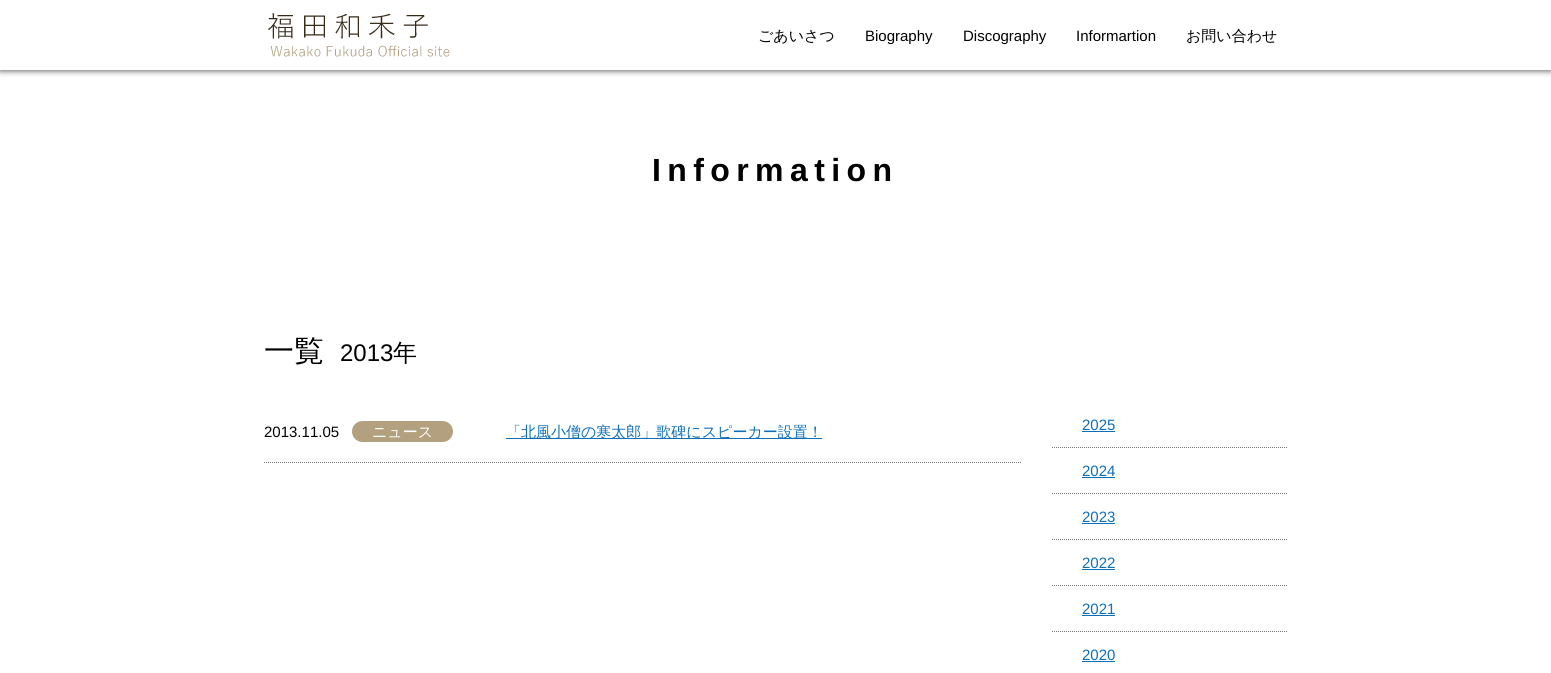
#include <cairo.h>
#include <math.h>
#include <stddef.h>

typedef struct { double x, y; const char *s; } line_t;

static void ink(cairo_t *ctx, unsigned color) {
    cairo_set_source_rgb(ctx, (color >> 16) / 255.0, (color >> 8 & 255) / 255.0, (color & 255) / 255.0);
}

static void write_spaced(cairo_t *ctx, double x, double y, const char *s, double letter, double word) {
    cairo_move_to(ctx, x, y);
    while (*s) {
        char ch[5] = {0};
        int n = 0;
        do ch[n++] = *s++; while ((*s & 0xC0) == 0x80);
        cairo_show_text(ctx, ch);
        cairo_rel_move_to(ctx, letter + word * (*ch == ' '), 0);
    }
}

static void round_path(cairo_t *ctx, double x, double y, double w, double h, double r) {
    cairo_new_sub_path(ctx);
    cairo_arc(ctx, x + w - r, y + h - r, r, 0, M_PI / 2);
    cairo_arc(ctx, x + r, y + h - r, r, M_PI / 2, M_PI);
    cairo_arc(ctx, x + r, y + r, r, M_PI, 1.5 * M_PI);
    cairo_arc(ctx, x + w - r, y + r, r, 1.5 * M_PI, 2 * M_PI);
    cairo_close_path(ctx);
}

static void blur_box(cairo_t *ctx, double x, double y, double w, double h, double r, double blur, double alpha) {
    cairo_push_group_with_content(ctx, CAIRO_CONTENT_ALPHA);
    cairo_set_operator(ctx, CAIRO_OPERATOR_SOURCE);
    for (int i = 15; i >= -15 && fmin(w, h) + blur * i / 3 > 0; i -= 2) {
        double e = blur * i / 6;
        cairo_set_source_rgba(ctx, 0, 0, 0, alpha * erfc((i - 1) / 8.5) / 2);
        round_path(ctx, x - e, y - e, w + 2 * e, h + 2 * e, fmax(0, fmin(r + e + blur * .6, fmin(w, h) / 2 + e)));
        cairo_fill(ctx);
    }
    cairo_pattern_t *soft = cairo_pop_group(ctx);
    cairo_mask(ctx, soft);
    cairo_pattern_destroy(soft);
}

static void paste(cairo_t *ctx, const char *path, double x, double y, double w, double h) {
    cairo_surface_t *image = cairo_image_surface_create_from_png(path);
    cairo_save(ctx);
    cairo_set_source_surface(ctx, image, x, y);
    cairo_rectangle(ctx, x, y, w, h);
    cairo_fill(ctx);
    cairo_restore(ctx);
    cairo_surface_destroy(image);
}

int main(void) {
    cairo_surface_t *surface = cairo_image_surface_create(CAIRO_FORMAT_RGB24, 1551, 673);
    cairo_t *ctx = cairo_create(surface);
    cairo_font_options_t *options = cairo_font_options_create();
    cairo_font_options_set_hint_metrics(options, CAIRO_HINT_METRICS_OFF);
    cairo_font_options_set_hint_style(options, CAIRO_HINT_STYLE_NONE);
    cairo_set_font_options(ctx, options);
    cairo_set_miter_limit(ctx, 4);
    ink(ctx, 0xFFFFFF);
    cairo_paint(ctx);
    cairo_save(ctx);
    cairo_rectangle(ctx, 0, 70, 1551, 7);
    cairo_clip(ctx);
    ink(ctx, 0x666666);
    blur_box(ctx, 0, 1, 1551, 70, 0, 3, 1);
    cairo_restore(ctx);
    paste(ctx, "media/1.png", 268, 13, 182, 44);
    cairo_select_font_face(ctx, "WenQuanYi Zen Hei Medium", CAIRO_FONT_SLANT_NORMAL, CAIRO_FONT_WEIGHT_NORMAL);
    cairo_set_font_size(ctx, 15);
    ink(ctx, 0x000000);
    cairo_move_to(ctx, 758, 41);
    cairo_show_text(ctx, "ごあいさつ");
    cairo_select_font_face(ctx, "Liberation Sans", CAIRO_FONT_SLANT_NORMAL, CAIRO_FONT_WEIGHT_NORMAL);
    {
        static const line_t items[] = {
            {865, 41, "Biography"},
            {963, 41, "Discography"},
            {1076, 41, "Informartion"},
        };
        for (size_t i = 0; i < sizeof items / sizeof *items; i++) {
            cairo_move_to(ctx, items[i].x, items[i].y);
            cairo_show_text(ctx, items[i].s);
        }
    }
    cairo_select_font_face(ctx, "WenQuanYi Zen Hei Medium", CAIRO_FONT_SLANT_NORMAL, CAIRO_FONT_WEIGHT_NORMAL);
    cairo_move_to(ctx, 1186, 41);
    cairo_show_text(ctx, "お問い合わせ");
    cairo_select_font_face(ctx, "Liberation Sans", CAIRO_FONT_SLANT_NORMAL, CAIRO_FONT_WEIGHT_BOLD);
    cairo_set_font_size(ctx, 32);
    write_spaced(ctx, 652, 181, "Information", 6.4, 0);
    cairo_select_font_face(ctx, "WenQuanYi Zen Hei Medium", CAIRO_FONT_SLANT_NORMAL, CAIRO_FONT_WEIGHT_NORMAL);
    cairo_set_font_size(ctx, 30);
    cairo_move_to(ctx, 264, 361);
    cairo_show_text(ctx, "一覧");
    cairo_select_font_face(ctx, "Liberation Sans", CAIRO_FONT_SLANT_NORMAL, CAIRO_FONT_WEIGHT_NORMAL);
    cairo_set_font_size(ctx, 24);
    cairo_move_to(ctx, 340, 361);
    cairo_show_text(ctx, "2013");
    cairo_select_font_face(ctx, "WenQuanYi Zen Hei Medium", CAIRO_FONT_SLANT_NORMAL, CAIRO_FONT_WEIGHT_NORMAL);
    cairo_move_to(ctx, 393, 361);
    cairo_show_text(ctx, "年");
    cairo_new_path(ctx);
    cairo_move_to(ctx, 264, 462.5);
    cairo_line_to(ctx, 1021, 462.5);
    ink(ctx, 0x777777);
    cairo_set_line_width(ctx, 1);
    cairo_set_dash(ctx, (double[]){1, 1}, 2, 0);
    cairo_stroke(ctx);
    cairo_select_font_face(ctx, "Liberation Sans", CAIRO_FONT_SLANT_NORMAL, CAIRO_FONT_WEIGHT_NORMAL);
    cairo_set_font_size(ctx, 15);
    ink(ctx, 0x000000);
    cairo_move_to(ctx, 264, 437);
    cairo_show_text(ctx, "2013.11.05");
    ink(ctx, 0xB2A07F);
    round_path(ctx, 352, 421, 101, 21, 10.5);
    cairo_fill(ctx);
    cairo_select_font_face(ctx, "WenQuanYi Zen Hei Medium", CAIRO_FONT_SLANT_NORMAL, CAIRO_FONT_WEIGHT_NORMAL);
    ink(ctx, 0xFFFFFF);
    cairo_move_to(ctx, 372, 437);
    cairo_show_text(ctx, "ニュース");
    ink(ctx, 0x0E6EB8);
    cairo_rectangle(ctx, 506, 438, 316, 1);
    cairo_fill(ctx);
    cairo_move_to(ctx, 506, 437);
    cairo_show_text(ctx, "「北風小僧の寒太郎」歌碑にスピーカー設置！");
    cairo_new_path(ctx);
    cairo_move_to(ctx, 1052, 447.5);
    cairo_line_to(ctx, 1288, 447.5);
    ink(ctx, 0x777777);
    cairo_stroke(ctx);
    cairo_select_font_face(ctx, "Liberation Sans", CAIRO_FONT_SLANT_NORMAL, CAIRO_FONT_WEIGHT_NORMAL);
    ink(ctx, 0x0E6EB8);
    cairo_move_to(ctx, 1082, 430);
    cairo_show_text(ctx, "2025");
    cairo_rectangle(ctx, 1082, 431, 33, 1);
    cairo_fill(ctx);
    cairo_new_path(ctx);
    cairo_move_to(ctx, 1052, 493.5);
    cairo_line_to(ctx, 1288, 493.5);
    ink(ctx, 0x777777);
    cairo_stroke(ctx);
    ink(ctx, 0x0E6EB8);
    cairo_move_to(ctx, 1082, 476);
    cairo_show_text(ctx, "2024");
    cairo_rectangle(ctx, 1082, 477, 33, 1);
    cairo_fill(ctx);
    cairo_new_path(ctx);
    cairo_move_to(ctx, 1052, 539.5);
    cairo_line_to(ctx, 1288, 539.5);
    ink(ctx, 0x777777);
    cairo_stroke(ctx);
    ink(ctx, 0x0E6EB8);
    cairo_move_to(ctx, 1082, 522);
    cairo_show_text(ctx, "2023");
    cairo_rectangle(ctx, 1082, 523, 33, 1);
    cairo_fill(ctx);
    cairo_new_path(ctx);
    cairo_move_to(ctx, 1052, 585.5);
    cairo_line_to(ctx, 1288, 585.5);
    ink(ctx, 0x777777);
    cairo_stroke(ctx);
    ink(ctx, 0x0E6EB8);
    cairo_move_to(ctx, 1082, 568);
    cairo_show_text(ctx, "2022");
    cairo_rectangle(ctx, 1082, 569, 33, 1);
    cairo_fill(ctx);
    cairo_new_path(ctx);
    cairo_move_to(ctx, 1052, 631.5);
    cairo_line_to(ctx, 1288, 631.5);
    ink(ctx, 0x777777);
    cairo_stroke(ctx);
    ink(ctx, 0x0E6EB8);
    cairo_move_to(ctx, 1082, 614);
    cairo_show_text(ctx, "2021");
    cairo_rectangle(ctx, 1082, 615, 33, 1);
    cairo_fill(ctx);
    cairo_move_to(ctx, 1082, 660);
    cairo_show_text(ctx, "2020");
    cairo_rectangle(ctx, 1082, 661, 33, 1);
    cairo_fill(ctx);
    cairo_surface_write_to_png(surface, "image.png");
    cairo_font_options_destroy(options);
    cairo_destroy(ctx);
    cairo_surface_destroy(surface);
    return 0;
}
